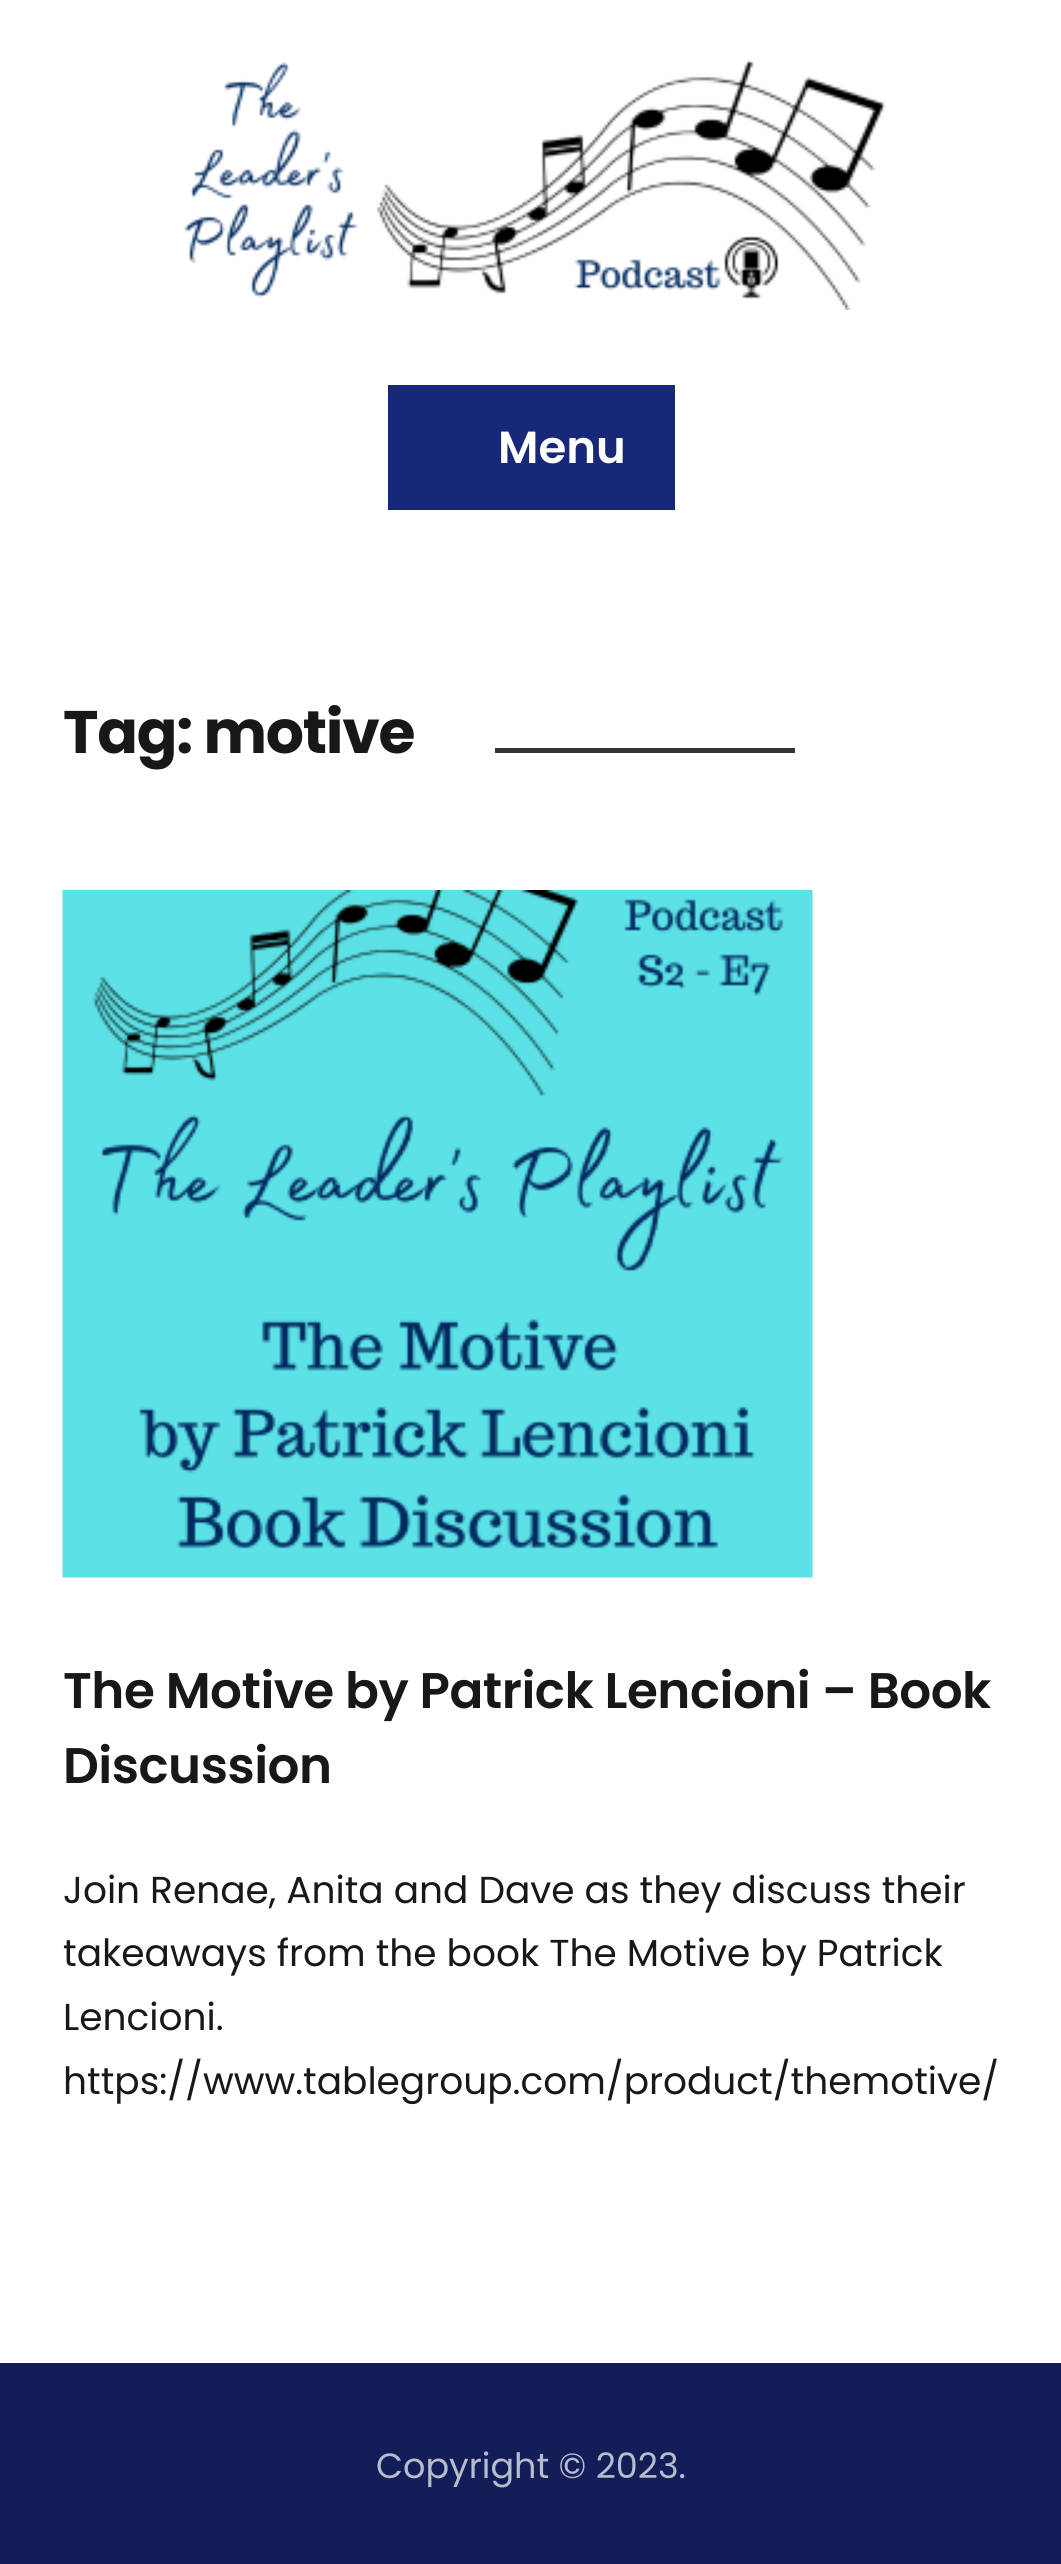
#include <cairo.h>
#include <math.h>
#include <stddef.h>

typedef struct { double x, y; const char *s; } line_t;

static void ink(cairo_t *ctx, unsigned color) {
    cairo_set_source_rgb(ctx, (color >> 16) / 255.0, (color >> 8 & 255) / 255.0, (color & 255) / 255.0);
}

static void write_spaced(cairo_t *ctx, double x, double y, const char *s, double letter, double word) {
    cairo_move_to(ctx, x, y);
    while (*s) {
        char ch[5] = {0};
        int n = 0;
        do ch[n++] = *s++; while ((*s & 0xC0) == 0x80);
        cairo_show_text(ctx, ch);
        cairo_rel_move_to(ctx, letter + word * (*ch == ' '), 0);
    }
}

static void paste(cairo_t *ctx, const char *path, double x, double y, double w, double h) {
    cairo_surface_t *image = cairo_image_surface_create_from_png(path);
    cairo_save(ctx);
    cairo_set_source_surface(ctx, image, x, y);
    cairo_rectangle(ctx, x, y, w, h);
    cairo_fill(ctx);
    cairo_restore(ctx);
    cairo_surface_destroy(image);
}

int main(void) {
    cairo_surface_t *surface = cairo_image_surface_create(CAIRO_FORMAT_RGB24, 1061, 2564);
    cairo_t *ctx = cairo_create(surface);
    cairo_font_options_t *options = cairo_font_options_create();
    cairo_font_options_set_hint_metrics(options, CAIRO_HINT_METRICS_OFF);
    cairo_font_options_set_hint_style(options, CAIRO_HINT_STYLE_NONE);
    cairo_set_font_options(ctx, options);
    cairo_set_miter_limit(ctx, 4);
    ink(ctx, 0xFFFFFF);
    cairo_paint(ctx);
    paste(ctx, "media/1.png", 184, 60, 702, 250);
    ink(ctx, 0x182879);
    cairo_rectangle(ctx, 388, 385, 287, 125);
    cairo_fill(ctx);
    cairo_select_font_face(ctx, "Poppins SemiBold", CAIRO_FONT_SLANT_NORMAL, CAIRO_FONT_WEIGHT_NORMAL);
    cairo_set_font_size(ctx, 45);
    ink(ctx, 0xFFFFFF);
    cairo_move_to(ctx, 498, 463);
    cairo_show_text(ctx, "Menu");
    cairo_select_font_face(ctx, "Poppins", CAIRO_FONT_SLANT_NORMAL, CAIRO_FONT_WEIGHT_BOLD);
    cairo_set_font_size(ctx, 60);
    ink(ctx, 0x181818);
    write_spaced(ctx, 63, 753, "Tag: motive", -1.25, 0);
    ink(ctx, 0x333333);
    cairo_rectangle(ctx, 495, 748, 300, 5);
    cairo_fill(ctx);
    paste(ctx, "media/2.png", 62, 890, 751, 688);
    cairo_select_font_face(ctx, "Poppins SemiBold", CAIRO_FONT_SLANT_NORMAL, CAIRO_FONT_WEIGHT_NORMAL);
    cairo_set_font_size(ctx, 50);
    ink(ctx, 0x181818);
    write_spaced(ctx, 63, 1708, "The Motive by Patrick Lencioni – Book", -0.5, 0);
    write_spaced(ctx, 63, 1783, "Discussion", -0.5, 0);
    cairo_select_font_face(ctx, "Poppins", CAIRO_FONT_SLANT_NORMAL, CAIRO_FONT_WEIGHT_NORMAL);
    cairo_set_font_size(ctx, 37.5);
    {
        static const line_t items[] = {
            {63, 1903, "Join Renae, Anita and Dave as they discuss their"},
            {63, 1966, "takeaways from the book The Motive by Patrick"},
            {63, 2030, "Lencioni."},
            {63, 2094, "https://www.tablegroup.com/product/themotive/"},
        };
        for (size_t i = 0; i < sizeof items / sizeof *items; i++) {
            cairo_move_to(ctx, items[i].x, items[i].y);
            cairo_show_text(ctx, items[i].s);
        }
    }
    ink(ctx, 0x131E58);
    cairo_rectangle(ctx, 0, 2363, 1061, 201);
    cairo_fill(ctx);
    cairo_set_font_size(ctx, 35);
    ink(ctx, 0xB8BCCD);
    cairo_move_to(ctx, 376, 2478);
    cairo_show_text(ctx, "Copyright © 2023.");
    cairo_surface_write_to_png(surface, "image.png");
    cairo_font_options_destroy(options);
    cairo_destroy(ctx);
    cairo_surface_destroy(surface);
    return 0;
}
